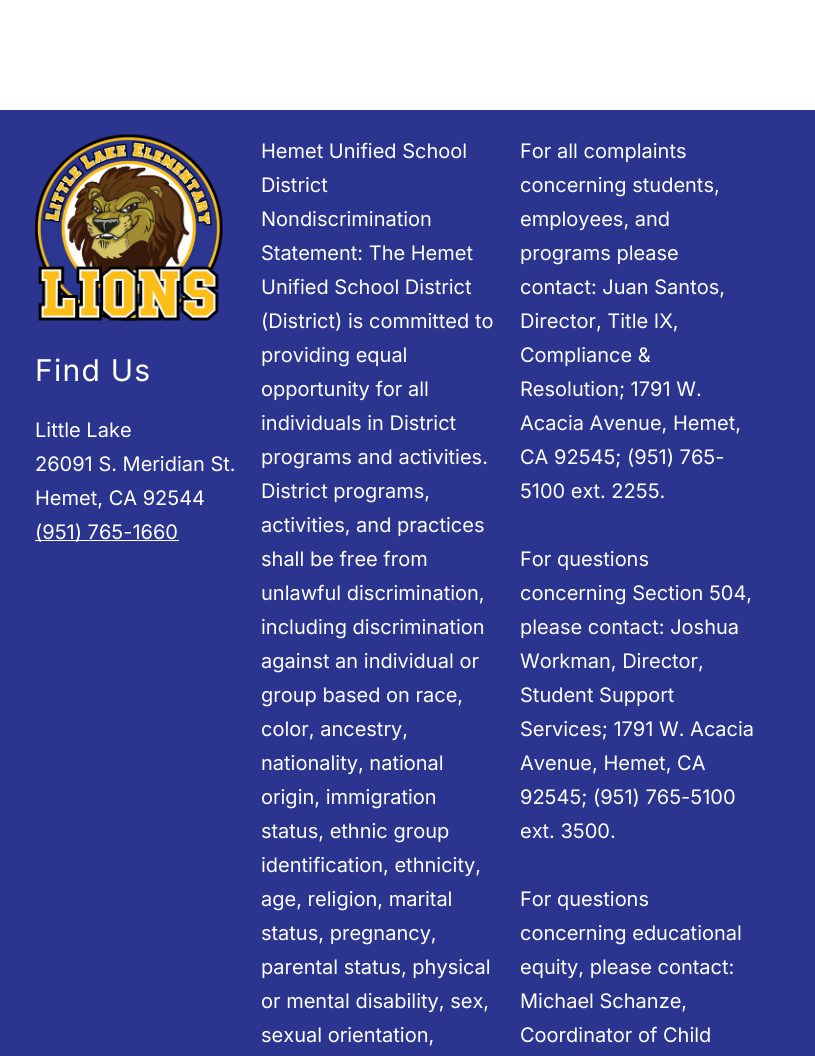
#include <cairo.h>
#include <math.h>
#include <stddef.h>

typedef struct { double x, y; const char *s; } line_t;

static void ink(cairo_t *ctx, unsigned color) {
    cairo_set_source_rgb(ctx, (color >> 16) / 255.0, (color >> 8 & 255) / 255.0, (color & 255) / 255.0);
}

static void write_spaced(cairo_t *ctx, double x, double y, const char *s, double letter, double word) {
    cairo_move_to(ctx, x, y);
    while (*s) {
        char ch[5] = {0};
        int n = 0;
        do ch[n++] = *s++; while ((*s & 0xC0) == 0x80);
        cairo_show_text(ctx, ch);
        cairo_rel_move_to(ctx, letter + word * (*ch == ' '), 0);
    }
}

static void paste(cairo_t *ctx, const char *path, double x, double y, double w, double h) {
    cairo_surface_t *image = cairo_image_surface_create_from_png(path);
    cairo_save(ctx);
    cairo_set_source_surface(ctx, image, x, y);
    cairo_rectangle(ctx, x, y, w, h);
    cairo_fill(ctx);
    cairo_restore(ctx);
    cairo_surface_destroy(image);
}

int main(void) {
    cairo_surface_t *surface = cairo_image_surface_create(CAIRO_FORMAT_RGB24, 815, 1056);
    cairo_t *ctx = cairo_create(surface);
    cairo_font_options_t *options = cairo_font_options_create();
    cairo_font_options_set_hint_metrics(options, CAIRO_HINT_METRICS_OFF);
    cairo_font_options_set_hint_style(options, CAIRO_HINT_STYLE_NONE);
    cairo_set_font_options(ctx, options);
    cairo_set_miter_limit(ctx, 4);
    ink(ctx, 0xFFFFFF);
    cairo_paint(ctx);
    ink(ctx, 0x2B358F);
    cairo_rectangle(ctx, 0, 110, 815, 946);
    cairo_fill(ctx);
    paste(ctx, "media/1.png", 35, 134, 188, 187);
    cairo_select_font_face(ctx, "Inter", CAIRO_FONT_SLANT_NORMAL, CAIRO_FONT_WEIGHT_NORMAL);
    cairo_set_font_size(ctx, 30);
    ink(ctx, 0xFFFFFF);
    write_spaced(ctx, 35, 381, "Find Us", 1.25, 0);
    cairo_set_font_size(ctx, 20);
    {
        static const line_t items[] = {
            {35, 437, "Little Lake"},
            {35, 471, "26091 S. Meridian St."},
            {35, 505, "Hemet, CA 92544"},
        };
        for (size_t i = 0; i < sizeof items / sizeof *items; i++) {
            cairo_move_to(ctx, items[i].x, items[i].y);
            cairo_show_text(ctx, items[i].s);
        }
    }
    cairo_rectangle(ctx, 35, 540, 144, 1);
    cairo_fill(ctx);
    {
        static const line_t items[] = {
            {35, 539, "(951) 765-1660"},
            {261, 158, "Hemet Unified School"},
            {261, 192, "District"},
            {261, 226, "Nondiscrimination"},
            {261, 260, "Statement: The Hemet"},
            {261, 294, "Unified School District"},
            {261, 328, "(District) is committed to"},
            {261, 362, "providing equal"},
            {261, 396, "opportunity for all"},
            {261, 430, "individuals in District"},
            {261, 464, "programs and activities."},
            {261, 498, "District programs,"},
            {261, 532, "activities, and practices"},
            {261, 566, "shall be free from"},
            {261, 600, "unlawful discrimination,"},
            {261, 634, "including discrimination"},
            {261, 668, "against an individual or"},
            {261, 702, "group based on race,"},
            {261, 736, "color, ancestry,"},
            {261, 770, "nationality, national"},
            {261, 804, "origin, immigration"},
            {261, 838, "status, ethnic group"},
            {261, 872, "identification, ethnicity,"},
            {261, 906, "age, religion, marital"},
            {261, 940, "status, pregnancy,"},
            {261, 974, "parental status, physical"},
            {261, 1008, "or mental disability, sex,"},
            {261, 1042, "sexual orientation,"},
            {520, 158, "For all complaints"},
            {520, 192, "concerning students,"},
            {520, 226, "employees, and"},
            {520, 260, "programs please"},
            {520, 294, "contact: Juan Santos,"},
            {520, 328, "Director, Title IX,"},
            {520, 362, "Compliance &"},
            {520, 396, "Resolution; 1791 W."},
            {520, 430, "Acacia Avenue, Hemet,"},
            {520, 464, "CA 92545; (951) 765-"},
            {520, 498, "5100 ext. 2255."},
            {520, 566, "For questions"},
            {520, 600, "concerning Section 504,"},
            {520, 634, "please contact: Joshua"},
            {520, 668, "Workman, Director,"},
            {520, 702, "Student Support"},
            {520, 736, "Services; 1791 W. Acacia"},
            {520, 770, "Avenue, Hemet, CA"},
            {520, 804, "92545; (951) 765-5100"},
            {520, 838, "ext. 3500."},
            {520, 906, "For questions"},
            {520, 940, "concerning educational"},
            {520, 974, "equity, please contact:"},
            {520, 1008, "Michael Schanze,"},
            {520, 1042, "Coordinator of Child"},
        };
        for (size_t i = 0; i < sizeof items / sizeof *items; i++) {
            cairo_move_to(ctx, items[i].x, items[i].y);
            cairo_show_text(ctx, items[i].s);
        }
    }
    cairo_surface_write_to_png(surface, "image.png");
    cairo_font_options_destroy(options);
    cairo_destroy(ctx);
    cairo_surface_destroy(surface);
    return 0;
}
